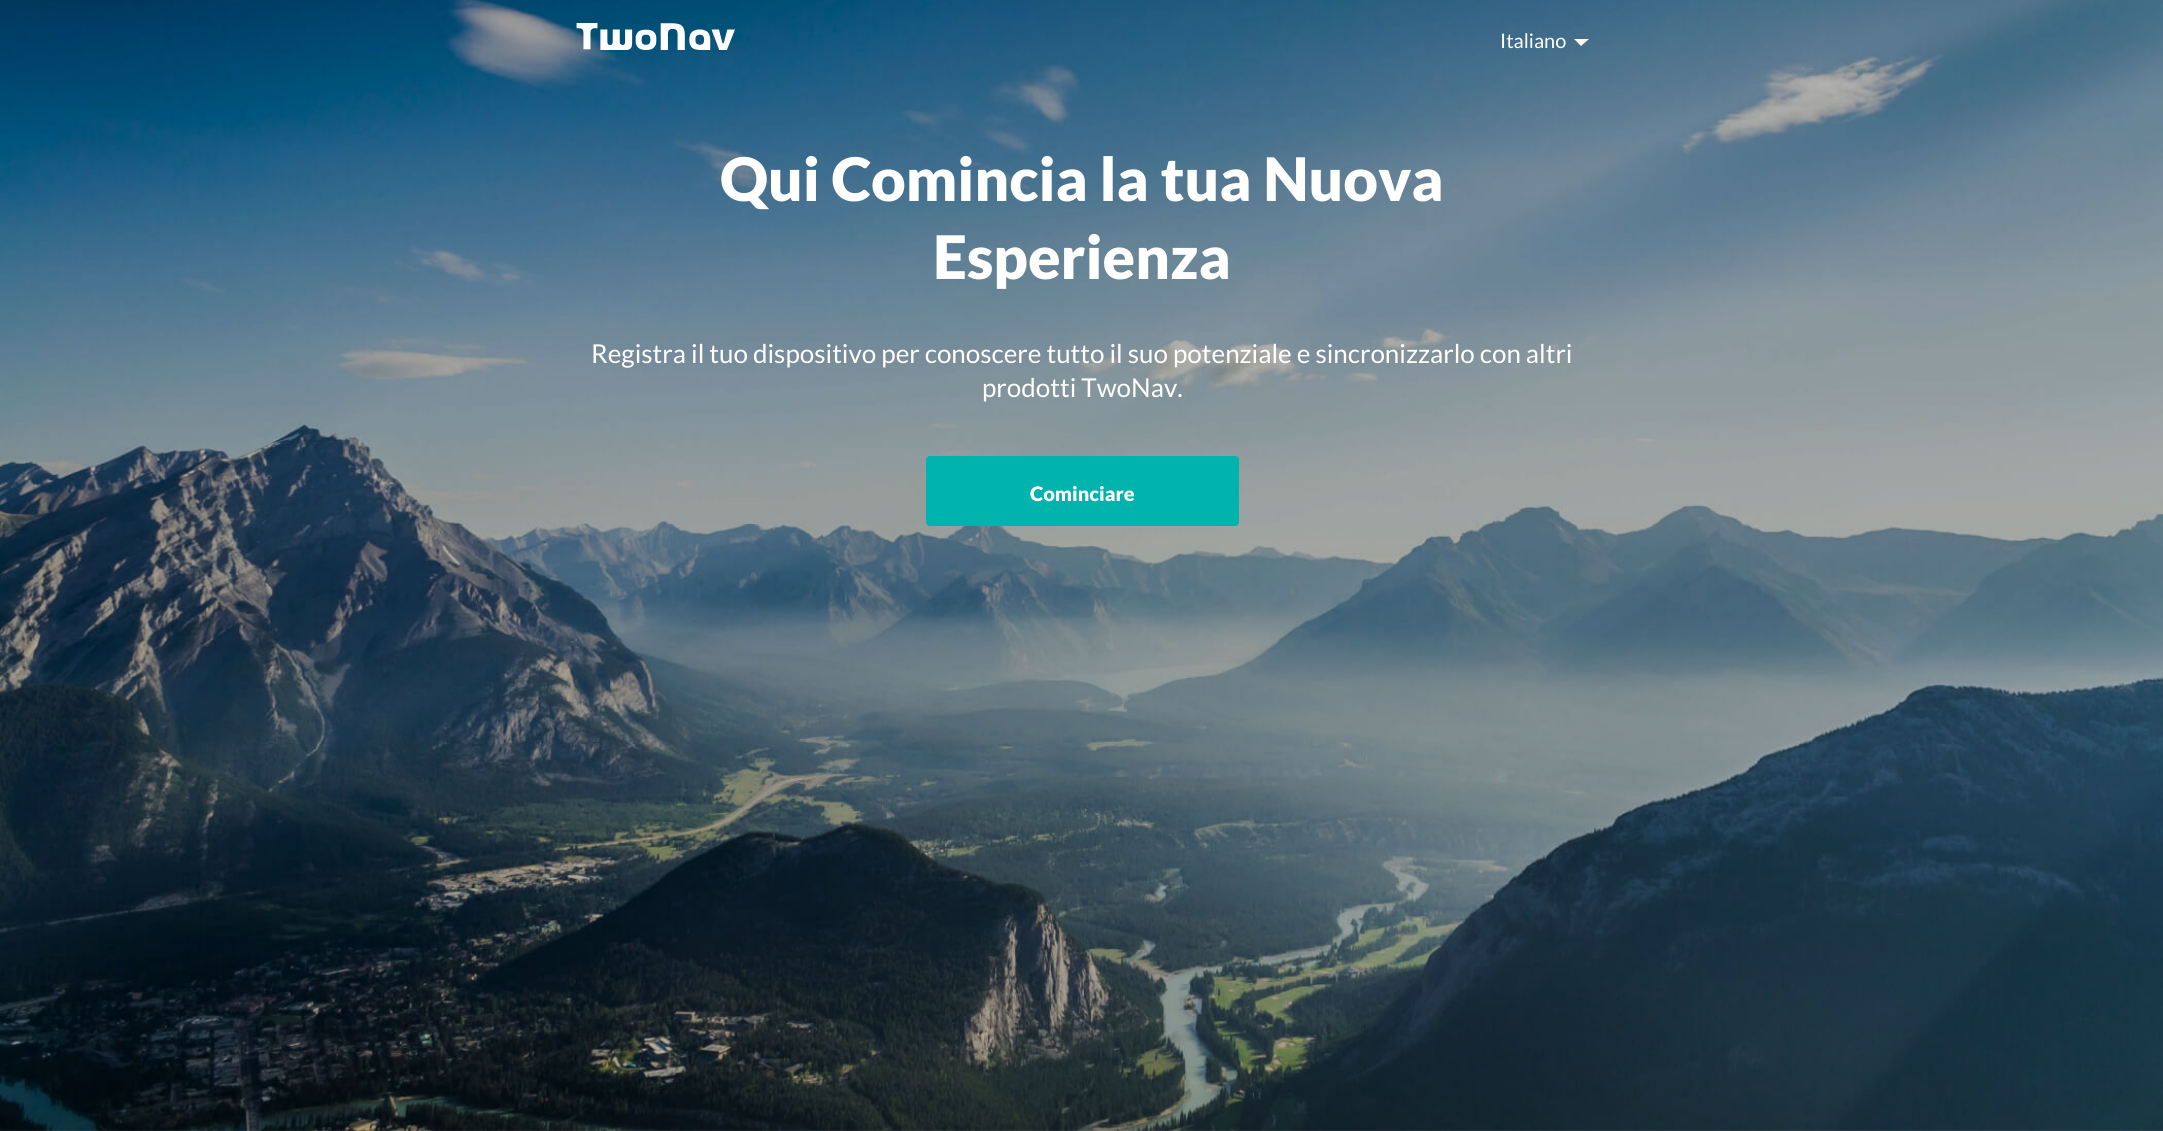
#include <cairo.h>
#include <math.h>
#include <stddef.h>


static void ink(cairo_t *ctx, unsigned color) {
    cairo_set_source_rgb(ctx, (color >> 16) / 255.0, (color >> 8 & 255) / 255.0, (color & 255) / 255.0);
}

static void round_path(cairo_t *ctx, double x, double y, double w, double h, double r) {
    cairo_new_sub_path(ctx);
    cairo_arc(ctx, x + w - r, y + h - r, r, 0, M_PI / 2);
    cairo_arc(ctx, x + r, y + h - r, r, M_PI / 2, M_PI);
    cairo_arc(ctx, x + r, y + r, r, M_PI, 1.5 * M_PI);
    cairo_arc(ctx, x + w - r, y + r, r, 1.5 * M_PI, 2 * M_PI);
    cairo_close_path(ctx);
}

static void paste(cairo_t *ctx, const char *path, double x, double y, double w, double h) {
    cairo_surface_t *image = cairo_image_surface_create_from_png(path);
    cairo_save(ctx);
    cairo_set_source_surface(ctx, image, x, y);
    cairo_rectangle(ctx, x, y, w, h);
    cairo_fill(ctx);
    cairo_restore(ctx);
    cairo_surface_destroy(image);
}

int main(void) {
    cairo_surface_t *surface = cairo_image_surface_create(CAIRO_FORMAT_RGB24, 2163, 1131);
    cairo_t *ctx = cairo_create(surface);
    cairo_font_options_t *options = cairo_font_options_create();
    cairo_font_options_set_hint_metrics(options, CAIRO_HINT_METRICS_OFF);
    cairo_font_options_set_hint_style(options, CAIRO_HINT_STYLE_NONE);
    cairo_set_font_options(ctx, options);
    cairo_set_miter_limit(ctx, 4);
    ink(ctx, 0xFFFFFF);
    cairo_paint(ctx);
    paste(ctx, "media/1.png", 0, 0, 2163, 1131);
    paste(ctx, "media/2.png", 576, 23, 159, 27);
    cairo_select_font_face(ctx, "Lato", CAIRO_FONT_SLANT_NORMAL, CAIRO_FONT_WEIGHT_NORMAL);
    cairo_set_font_size(ctx, 20);
    ink(ctx, 0xFFFFFF);
    cairo_move_to(ctx, 1500, 48);
    cairo_show_text(ctx, "Italiano");
    cairo_new_path(ctx);
    cairo_move_to(ctx, 1574, 39);
    cairo_line_to(ctx, 1589, 39);
    cairo_line_to(ctx, 1581, 46);
    cairo_close_path(ctx);
    cairo_fill(ctx);
    cairo_select_font_face(ctx, "Lato Black", CAIRO_FONT_SLANT_NORMAL, CAIRO_FONT_WEIGHT_NORMAL);
    cairo_set_font_size(ctx, 60);
    cairo_move_to(ctx, 720, 201);
    cairo_show_text(ctx, "Qui Comincia la tua Nuova");
    cairo_move_to(ctx, 933, 279);
    cairo_show_text(ctx, "Esperienza");
    cairo_select_font_face(ctx, "Lato", CAIRO_FONT_SLANT_NORMAL, CAIRO_FONT_WEIGHT_NORMAL);
    cairo_set_font_size(ctx, 26);
    cairo_move_to(ctx, 591, 363);
    cairo_show_text(ctx, "Registra il tuo dispositivo per conoscere tutto il suo potenziale e sincronizzarlo con altri");
    cairo_move_to(ctx, 982, 397);
    cairo_show_text(ctx, "prodotti TwoNav.");
    ink(ctx, 0x00B3AD);
    round_path(ctx, 926.5, 456.5, 312, 69, 3.5);
    cairo_fill_preserve(ctx);
    cairo_set_line_width(ctx, 1);
    cairo_stroke(ctx);
    cairo_select_font_face(ctx, "Lato Black", CAIRO_FONT_SLANT_NORMAL, CAIRO_FONT_WEIGHT_NORMAL);
    cairo_set_font_size(ctx, 20);
    ink(ctx, 0xFFFFFF);
    cairo_move_to(ctx, 1030, 501);
    cairo_show_text(ctx, "Cominciare");
    cairo_surface_write_to_png(surface, "image.png");
    cairo_font_options_destroy(options);
    cairo_destroy(ctx);
    cairo_surface_destroy(surface);
    return 0;
}
